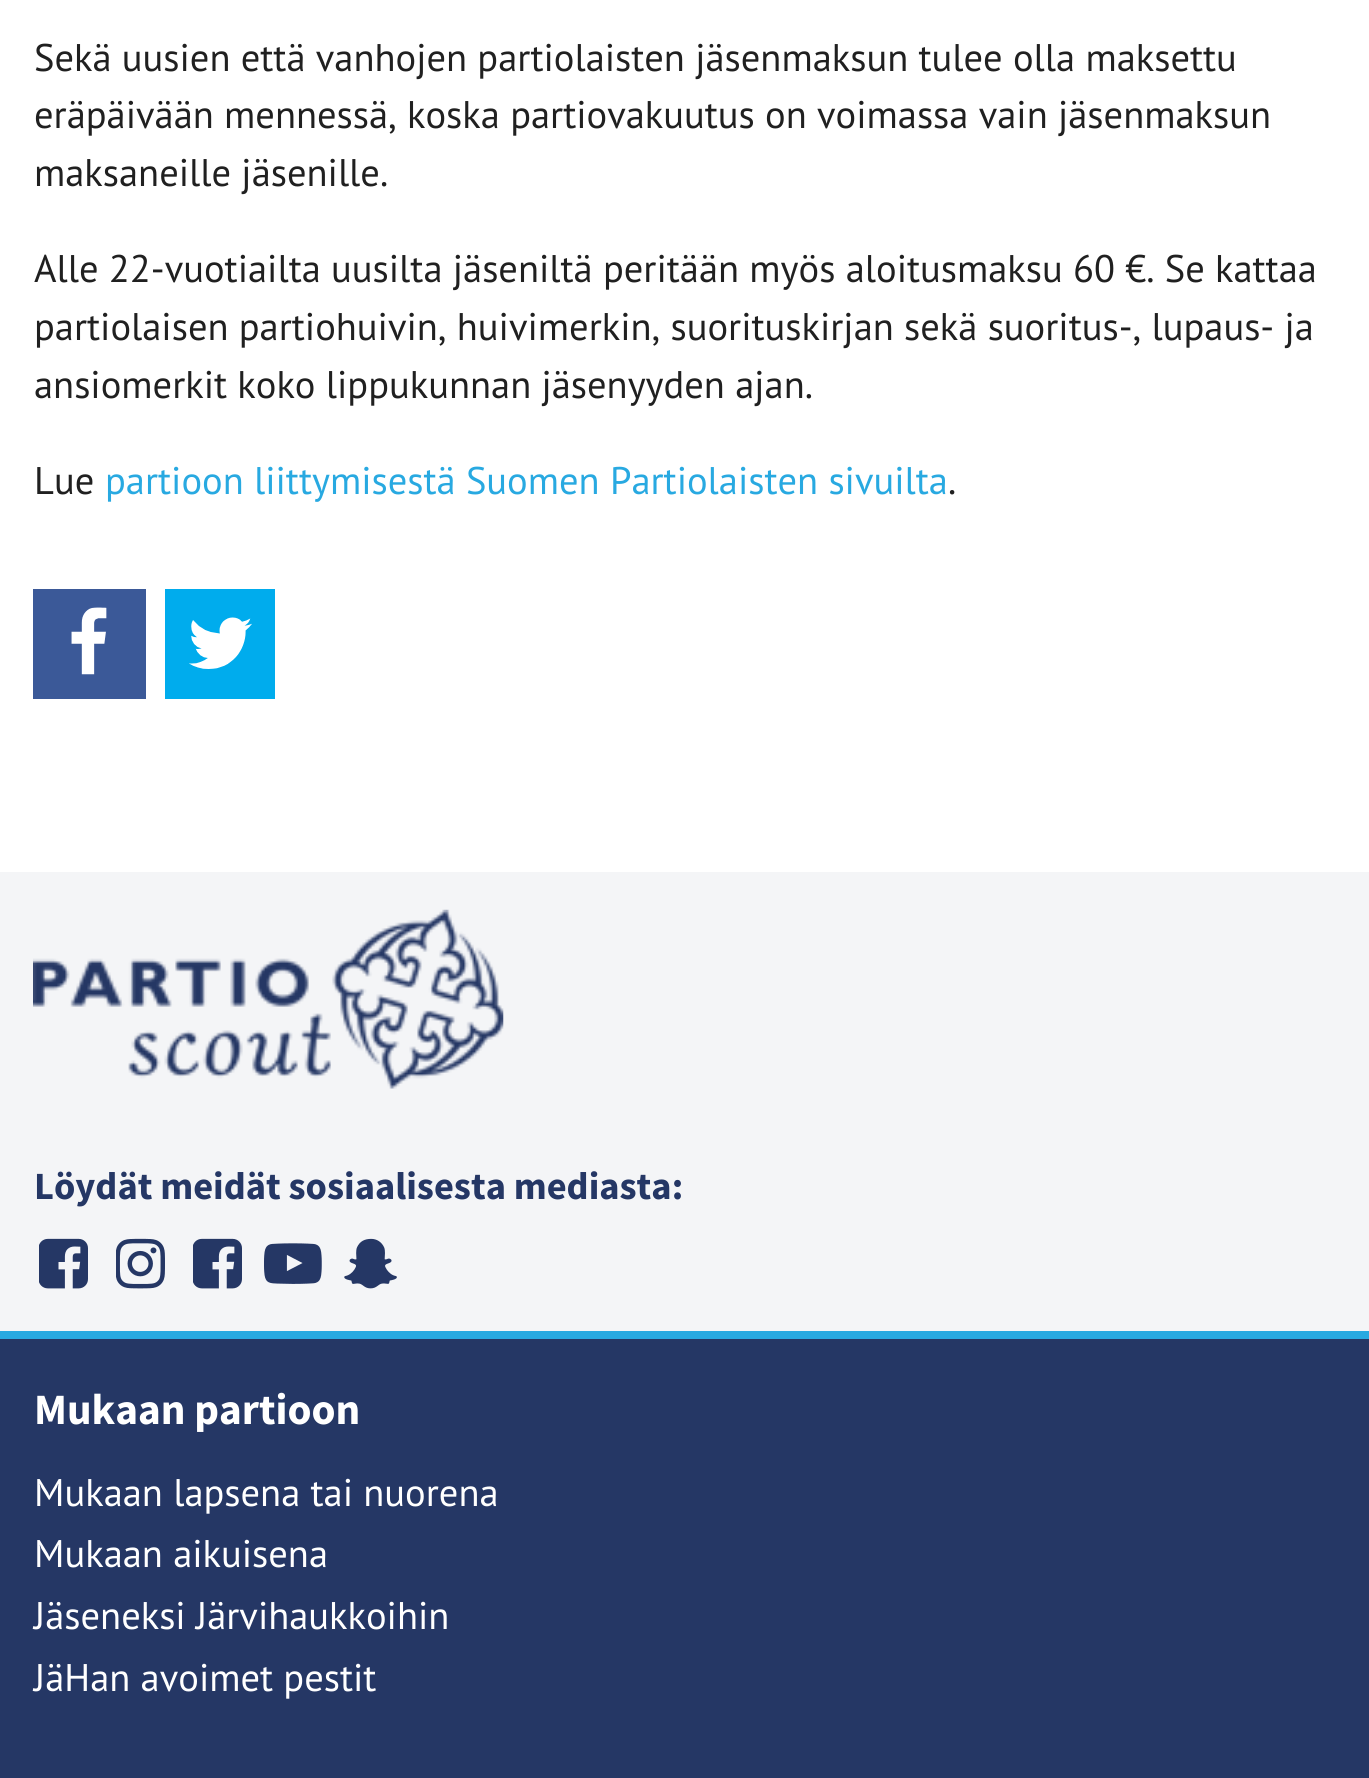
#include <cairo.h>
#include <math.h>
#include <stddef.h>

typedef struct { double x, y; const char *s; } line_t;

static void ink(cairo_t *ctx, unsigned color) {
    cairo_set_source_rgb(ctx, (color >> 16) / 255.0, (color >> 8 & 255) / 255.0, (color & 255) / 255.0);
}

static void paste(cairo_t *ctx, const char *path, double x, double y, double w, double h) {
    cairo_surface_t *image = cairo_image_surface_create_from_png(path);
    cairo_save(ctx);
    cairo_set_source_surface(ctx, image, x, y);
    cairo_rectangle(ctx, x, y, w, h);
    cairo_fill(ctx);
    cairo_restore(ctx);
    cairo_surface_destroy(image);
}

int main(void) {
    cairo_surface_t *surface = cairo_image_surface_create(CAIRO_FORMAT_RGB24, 1369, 1778);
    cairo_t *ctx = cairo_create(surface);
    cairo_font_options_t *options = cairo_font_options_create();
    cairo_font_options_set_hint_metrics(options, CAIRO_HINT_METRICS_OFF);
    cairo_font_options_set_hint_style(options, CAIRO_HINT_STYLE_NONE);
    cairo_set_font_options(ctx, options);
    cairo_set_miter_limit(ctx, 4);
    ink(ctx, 0xFFFFFF);
    cairo_paint(ctx);
    cairo_select_font_face(ctx, "PT Sans", CAIRO_FONT_SLANT_NORMAL, CAIRO_FONT_WEIGHT_NORMAL);
    cairo_set_font_size(ctx, 38.5);
    ink(ctx, 0x202020);
    {
        static const line_t items[] = {
            {34, 71, "Sekä uusien että vanhojen partiolaisten jäsenmaksun tulee olla maksettu"},
            {34, 128, "eräpäivään mennessä, koska partiovakuutus on voimassa vain jäsenmaksun"},
            {34, 186, "maksaneille jäsenille."},
            {34, 282, "Alle 22-vuotiailta uusilta jäseniltä peritään myös aloitusmaksu 60 €. Se kattaa"},
            {34, 340, "partiolaisen partiohuivin, huivimerkin, suorituskirjan sekä suoritus-, lupaus- ja"},
            {34, 398, "ansiomerkit koko lippukunnan jäsenyyden ajan."},
            {34, 494, "Lue"},
        };
        for (size_t i = 0; i < sizeof items / sizeof *items; i++) {
            cairo_move_to(ctx, items[i].x, items[i].y);
            cairo_show_text(ctx, items[i].s);
        }
    }
    ink(ctx, 0x28A9E1);
    cairo_move_to(ctx, 105, 494);
    cairo_show_text(ctx, "partioon liittymisestä Suomen Partiolaisten sivuilta");
    ink(ctx, 0x202020);
    cairo_move_to(ctx, 948, 494);
    cairo_show_text(ctx, ".");
    ink(ctx, 0x3B5998);
    cairo_rectangle(ctx, 33, 589, 113, 110);
    cairo_fill(ctx);
    paste(ctx, "media/1.png", 71, 607, 36, 68);
    ink(ctx, 0x00ACED);
    cairo_rectangle(ctx, 165, 589, 110, 110);
    cairo_fill(ctx);
    paste(ctx, "media/2.png", 189, 617, 63, 52);
    ink(ctx, 0xF4F5F7);
    cairo_rectangle(ctx, 0, 872, 1369, 459);
    cairo_fill(ctx);
    paste(ctx, "media/3.png", 33, 909, 471, 180);
    cairo_select_font_face(ctx, "Source Sans Pro", CAIRO_FONT_SLANT_NORMAL, CAIRO_FONT_WEIGHT_BOLD);
    ink(ctx, 0x253765);
    cairo_move_to(ctx, 34, 1199);
    cairo_show_text(ctx, "Löydät meidät sosiaalisesta mediasta:");
    paste(ctx, "media/4.png", 39, 1238, 49, 51);
    paste(ctx, "media/5.png", 116, 1238, 49, 51);
    paste(ctx, "media/4.png", 193, 1238, 49, 51);
    paste(ctx, "media/6.png", 264, 1243, 58, 41);
    paste(ctx, "media/7.png", 344, 1238, 53, 51);
    cairo_rectangle(ctx, 0, 1339, 1369, 439);
    cairo_fill(ctx);
    ink(ctx, 0x28A9E1);
    cairo_rectangle(ctx, 0, 1331, 1369, 8);
    cairo_fill(ctx);
    cairo_set_font_size(ctx, 43.25);
    ink(ctx, 0xFFFFFF);
    cairo_move_to(ctx, 34, 1424);
    cairo_show_text(ctx, "Mukaan partioon");
    cairo_select_font_face(ctx, "PT Sans", CAIRO_FONT_SLANT_NORMAL, CAIRO_FONT_WEIGHT_NORMAL);
    cairo_set_font_size(ctx, 38.5);
    {
        static const line_t items[] = {
            {34, 1506, "Mukaan lapsena tai nuorena"},
            {34, 1567, "Mukaan aikuisena"},
            {34, 1629, "Jäseneksi Järvihaukkoihin"},
            {34, 1691, "JäHan avoimet pestit"},
        };
        for (size_t i = 0; i < sizeof items / sizeof *items; i++) {
            cairo_move_to(ctx, items[i].x, items[i].y);
            cairo_show_text(ctx, items[i].s);
        }
    }
    cairo_surface_write_to_png(surface, "image.png");
    cairo_font_options_destroy(options);
    cairo_destroy(ctx);
    cairo_surface_destroy(surface);
    return 0;
}
